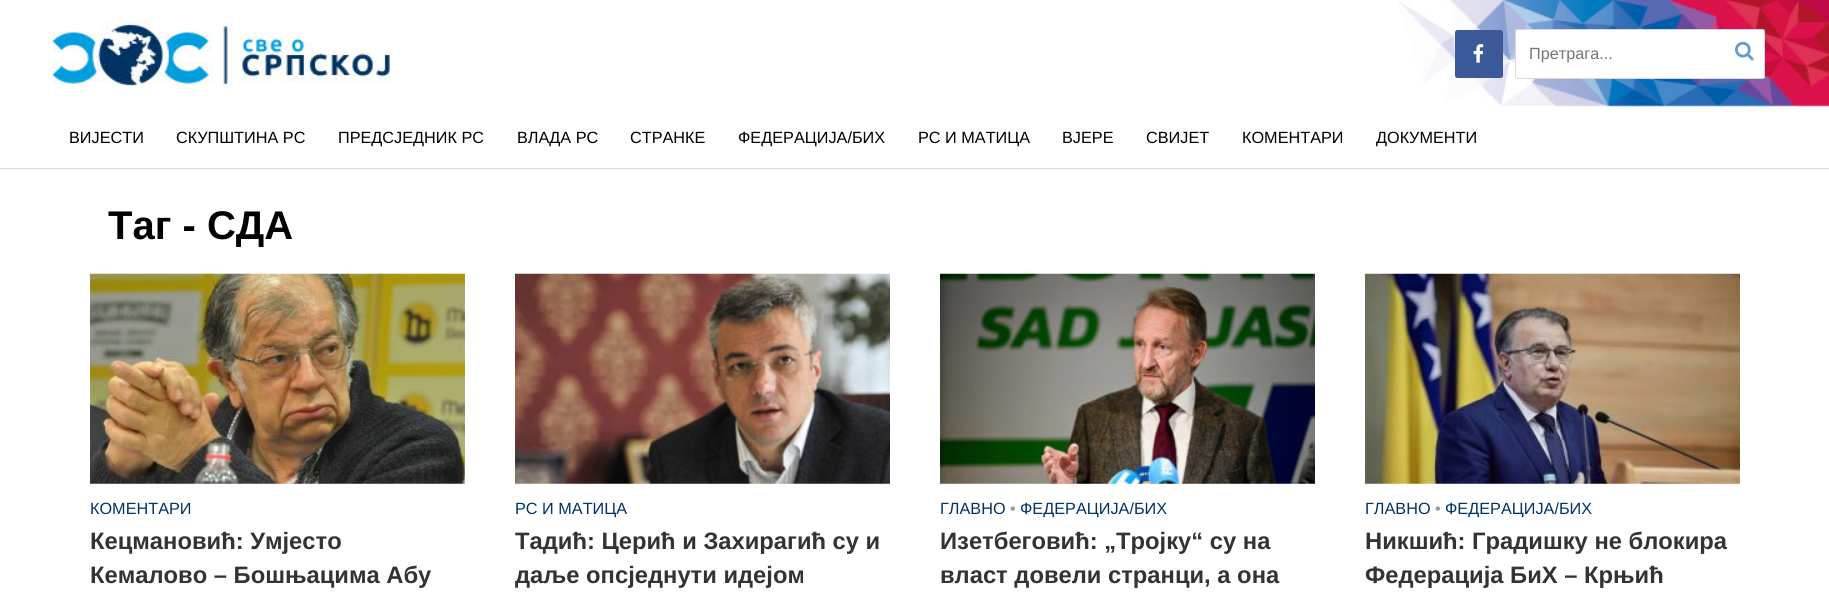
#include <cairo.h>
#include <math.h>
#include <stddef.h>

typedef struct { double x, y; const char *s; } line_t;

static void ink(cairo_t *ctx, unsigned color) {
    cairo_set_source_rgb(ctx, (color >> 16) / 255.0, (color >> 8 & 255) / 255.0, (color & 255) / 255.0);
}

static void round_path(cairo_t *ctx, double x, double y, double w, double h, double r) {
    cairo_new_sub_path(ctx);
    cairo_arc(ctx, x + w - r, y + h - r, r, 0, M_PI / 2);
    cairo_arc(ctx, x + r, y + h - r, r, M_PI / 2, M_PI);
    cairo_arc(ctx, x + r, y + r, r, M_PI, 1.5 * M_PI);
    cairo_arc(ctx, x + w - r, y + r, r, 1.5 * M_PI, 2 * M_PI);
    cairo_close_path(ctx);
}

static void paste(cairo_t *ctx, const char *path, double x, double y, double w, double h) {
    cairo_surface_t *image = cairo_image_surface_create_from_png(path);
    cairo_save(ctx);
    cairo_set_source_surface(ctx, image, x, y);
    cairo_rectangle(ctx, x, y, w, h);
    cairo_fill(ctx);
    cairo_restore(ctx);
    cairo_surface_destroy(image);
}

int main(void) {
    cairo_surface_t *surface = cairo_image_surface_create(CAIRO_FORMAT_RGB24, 1829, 607);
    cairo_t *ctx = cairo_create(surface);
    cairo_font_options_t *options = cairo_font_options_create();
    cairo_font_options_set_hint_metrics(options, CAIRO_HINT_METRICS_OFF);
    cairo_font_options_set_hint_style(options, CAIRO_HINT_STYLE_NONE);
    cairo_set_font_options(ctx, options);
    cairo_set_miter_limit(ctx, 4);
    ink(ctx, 0xFFFFFF);
    cairo_paint(ctx);
    paste(ctx, "media/1.png", 1398, 0, 431, 107);
    paste(ctx, "media/2.png", 52, 22, 338, 65);
    ink(ctx, 0x3B5998);
    round_path(ctx, 1455, 30, 48, 48, 2.5);
    cairo_fill(ctx);
    paste(ctx, "media/3.png", 1473, 44, 11, 19);
    ink(ctx, 0xFFFFFF);
    round_path(ctx, 1515, 29, 250, 50, 2.5);
    cairo_fill(ctx);
    round_path(ctx, 1515.5, 29.5, 249, 49, 2);
    cairo_set_source_rgba(ctx, 0.267, 0.267, 0.267, 0.2);
    cairo_set_line_width(ctx, 1);
    cairo_stroke(ctx);
    cairo_select_font_face(ctx, "Liberation Sans", CAIRO_FONT_SLANT_NORMAL, CAIRO_FONT_WEIGHT_NORMAL);
    cairo_set_font_size(ctx, 16.25);
    ink(ctx, 0x757575);
    cairo_move_to(ctx, 1529, 59);
    cairo_show_text(ctx, "Претрага...");
    paste(ctx, "media/4.png", 1735, 41, 19, 20);
    ink(ctx, 0xDADADA);
    cairo_rectangle(ctx, 0, 168, 1829, 1);
    cairo_fill(ctx);
    ink(ctx, 0x000000);
    {
        static const line_t items[] = {
            {69, 143, "ВИЈЕСТИ"},
            {176, 143, "СКУПШТИНА РС"},
            {338, 143, "ПРЕДСЈЕДНИК РС"},
            {517, 143, "ВЛАДА РС"},
            {630, 143, "СТРАНКЕ"},
            {738, 143, "ФЕДЕРАЦИЈА/БИХ"},
            {918, 143, "РС И МАТИЦА"},
            {1062, 143, "ВЈЕРЕ"},
            {1146, 143, "СВИЈЕТ"},
            {1242, 143, "КОМЕНТАРИ"},
            {1376, 143, "ДОКУМЕНТИ"},
        };
        for (size_t i = 0; i < sizeof items / sizeof *items; i++) {
            cairo_move_to(ctx, items[i].x, items[i].y);
            cairo_show_text(ctx, items[i].s);
        }
    }
    cairo_select_font_face(ctx, "Liberation Sans", CAIRO_FONT_SLANT_NORMAL, CAIRO_FONT_WEIGHT_BOLD);
    cairo_set_font_size(ctx, 40);
    cairo_move_to(ctx, 108, 239);
    cairo_show_text(ctx, "Таг - СДА");
    paste(ctx, "media/5.png", 90, 273, 375, 211);
    cairo_select_font_face(ctx, "Liberation Sans", CAIRO_FONT_SLANT_NORMAL, CAIRO_FONT_WEIGHT_NORMAL);
    cairo_set_font_size(ctx, 16.25);
    ink(ctx, 0x003463);
    cairo_move_to(ctx, 90, 514);
    cairo_show_text(ctx, "КОМЕНТАРИ");
    cairo_select_font_face(ctx, "Liberation Sans", CAIRO_FONT_SLANT_NORMAL, CAIRO_FONT_WEIGHT_BOLD);
    cairo_set_font_size(ctx, 23.75);
    ink(ctx, 0x333333);
    cairo_move_to(ctx, 90, 549);
    cairo_show_text(ctx, "Кецмановић: Умјесто");
    cairo_move_to(ctx, 90, 583);
    cairo_show_text(ctx, "Кемалово – Бошњацима Абу");
    paste(ctx, "media/6.png", 515, 273, 375, 211);
    cairo_select_font_face(ctx, "Liberation Sans", CAIRO_FONT_SLANT_NORMAL, CAIRO_FONT_WEIGHT_NORMAL);
    cairo_set_font_size(ctx, 16.25);
    ink(ctx, 0x003463);
    cairo_move_to(ctx, 515, 514);
    cairo_show_text(ctx, "РС И МАТИЦА");
    cairo_select_font_face(ctx, "Liberation Sans", CAIRO_FONT_SLANT_NORMAL, CAIRO_FONT_WEIGHT_BOLD);
    cairo_set_font_size(ctx, 23.75);
    ink(ctx, 0x333333);
    cairo_move_to(ctx, 515, 549);
    cairo_show_text(ctx, "Тадић: Церић и Захирагић су и");
    cairo_move_to(ctx, 515, 583);
    cairo_show_text(ctx, "даље опсједнути идејом");
    paste(ctx, "media/7.png", 940, 273, 375, 211);
    cairo_select_font_face(ctx, "Liberation Sans", CAIRO_FONT_SLANT_NORMAL, CAIRO_FONT_WEIGHT_NORMAL);
    cairo_set_font_size(ctx, 16.25);
    ink(ctx, 0x003463);
    cairo_move_to(ctx, 940, 514);
    cairo_show_text(ctx, "ГЛАВНО");
    ink(ctx, 0x999999);
    cairo_move_to(ctx, 1010, 514);
    cairo_show_text(ctx, "•");
    ink(ctx, 0x003463);
    cairo_move_to(ctx, 1020, 514);
    cairo_show_text(ctx, "ФЕДЕРАЦИЈА/БИХ");
    cairo_select_font_face(ctx, "Liberation Sans", CAIRO_FONT_SLANT_NORMAL, CAIRO_FONT_WEIGHT_BOLD);
    cairo_set_font_size(ctx, 23.75);
    ink(ctx, 0x333333);
    cairo_move_to(ctx, 940, 549);
    cairo_show_text(ctx, "Изетбеговић: „Тројку“ су на");
    cairo_move_to(ctx, 940, 583);
    cairo_show_text(ctx, "власт довели странци, а она");
    paste(ctx, "media/8.png", 1365, 273, 375, 211);
    cairo_select_font_face(ctx, "Liberation Sans", CAIRO_FONT_SLANT_NORMAL, CAIRO_FONT_WEIGHT_NORMAL);
    cairo_set_font_size(ctx, 16.25);
    ink(ctx, 0x003463);
    cairo_move_to(ctx, 1365, 514);
    cairo_show_text(ctx, "ГЛАВНО");
    ink(ctx, 0x999999);
    cairo_move_to(ctx, 1435, 514);
    cairo_show_text(ctx, "•");
    ink(ctx, 0x003463);
    cairo_move_to(ctx, 1445, 514);
    cairo_show_text(ctx, "ФЕДЕРАЦИЈА/БИХ");
    cairo_select_font_face(ctx, "Liberation Sans", CAIRO_FONT_SLANT_NORMAL, CAIRO_FONT_WEIGHT_BOLD);
    cairo_set_font_size(ctx, 23.75);
    ink(ctx, 0x333333);
    cairo_move_to(ctx, 1365, 549);
    cairo_show_text(ctx, "Никшић: Градишку не блокира");
    cairo_move_to(ctx, 1365, 583);
    cairo_show_text(ctx, "Федерација БиХ – Крњић");
    cairo_surface_write_to_png(surface, "image.png");
    cairo_font_options_destroy(options);
    cairo_destroy(ctx);
    cairo_surface_destroy(surface);
    return 0;
}
